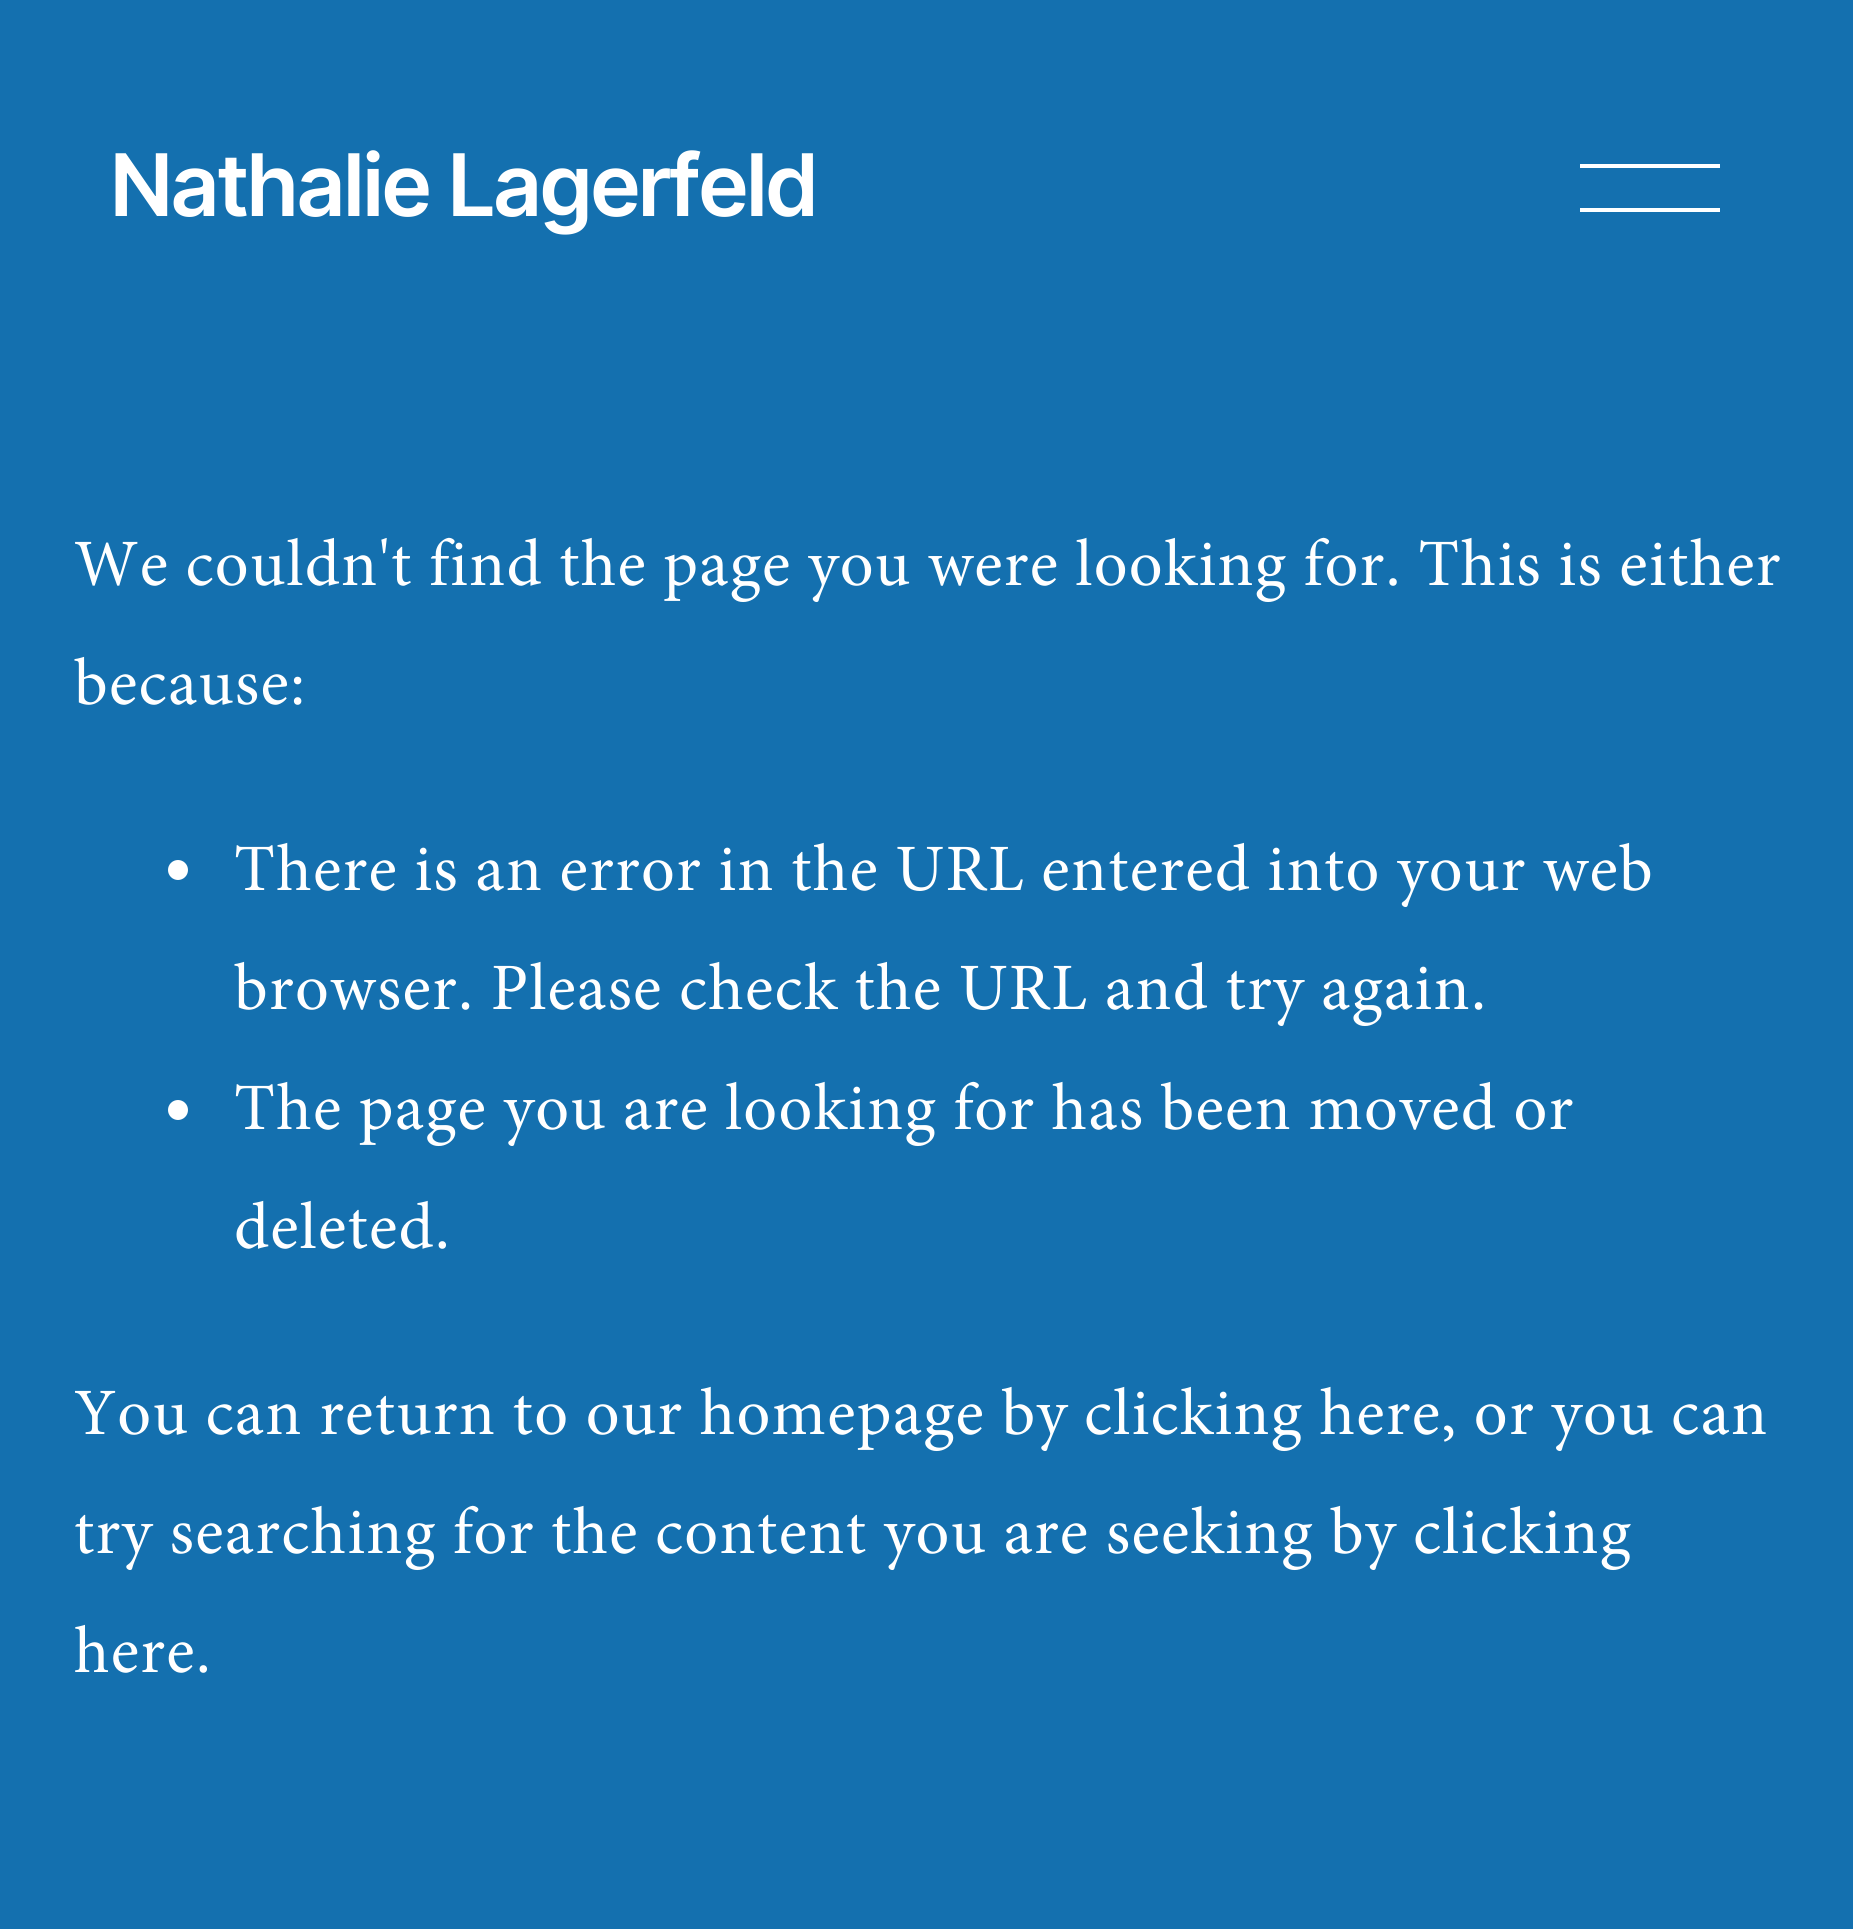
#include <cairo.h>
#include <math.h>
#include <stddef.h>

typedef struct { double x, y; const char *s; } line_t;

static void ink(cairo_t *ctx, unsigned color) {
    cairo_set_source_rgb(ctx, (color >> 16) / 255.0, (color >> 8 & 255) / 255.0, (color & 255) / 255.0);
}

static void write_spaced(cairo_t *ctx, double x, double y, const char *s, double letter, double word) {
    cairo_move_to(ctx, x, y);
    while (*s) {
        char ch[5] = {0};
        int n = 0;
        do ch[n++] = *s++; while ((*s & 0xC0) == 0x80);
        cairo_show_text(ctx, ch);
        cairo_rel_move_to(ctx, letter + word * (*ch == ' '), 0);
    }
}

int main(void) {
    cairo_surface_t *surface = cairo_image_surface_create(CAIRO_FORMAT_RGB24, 1853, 1929);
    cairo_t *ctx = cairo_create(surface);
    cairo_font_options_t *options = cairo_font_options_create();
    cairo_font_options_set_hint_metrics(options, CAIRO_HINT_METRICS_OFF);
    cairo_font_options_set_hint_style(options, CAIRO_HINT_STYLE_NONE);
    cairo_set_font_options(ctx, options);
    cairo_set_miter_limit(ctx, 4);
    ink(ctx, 0x1470AF);
    cairo_paint(ctx);
    cairo_select_font_face(ctx, "Inter Tight SemiBold", CAIRO_FONT_SLANT_NORMAL, CAIRO_FONT_WEIGHT_NORMAL);
    cairo_set_font_size(ctx, 86.25);
    ink(ctx, 0xFFFFFF);
    cairo_move_to(ctx, 111, 216);
    cairo_show_text(ctx, "Nathalie Lagerfeld");
    cairo_rectangle(ctx, 1580, 164, 140, 4);
    cairo_fill(ctx);
    cairo_rectangle(ctx, 1580, 208, 140, 4);
    cairo_fill(ctx);
    cairo_select_font_face(ctx, "Minion", CAIRO_FONT_SLANT_NORMAL, CAIRO_FONT_WEIGHT_NORMAL);
    cairo_set_font_size(ctx, 66.3);
    write_spaced(ctx, 74, 585, "We couldn't find the page you were looking for. This is either", 1.33, -0.1);
    write_spaced(ctx, 74, 704, "because:", 1.33, 0);
    cairo_new_path(ctx);
    cairo_arc(ctx, 178, 870, 10, 0, 2 * M_PI);
    cairo_fill(ctx);
    write_spaced(ctx, 234, 890, "There is an error in the URL entered into your web", 1.33, -0.1);
    write_spaced(ctx, 234, 1009, "browser. Please check the URL and try again.", 1.33, 0);
    cairo_new_path(ctx);
    cairo_arc(ctx, 178, 1110, 10, 0, 2 * M_PI);
    cairo_fill(ctx);
    write_spaced(ctx, 234, 1129, "The page you are looking for has been moved or", 1.33, -0.1);
    {
        static const line_t items[] = {
            {234, 1248, "deleted."},
            {74, 1434, "You can return to our homepage by"},
            {1084, 1434, "clicking here"},
            {1441, 1434, ", or you can"},
            {74, 1553, "try searching for the"},
            {655, 1553, "content you are seeking by"},
            {1413, 1553, "clicking"},
            {74, 1672, "here."},
        };
        for (size_t i = 0; i < sizeof items / sizeof *items; i++) {
            write_spaced(ctx, items[i].x, items[i].y, items[i].s, 1.33, 0);
        }
    }
    cairo_surface_write_to_png(surface, "image.png");
    cairo_font_options_destroy(options);
    cairo_destroy(ctx);
    cairo_surface_destroy(surface);
    return 0;
}
